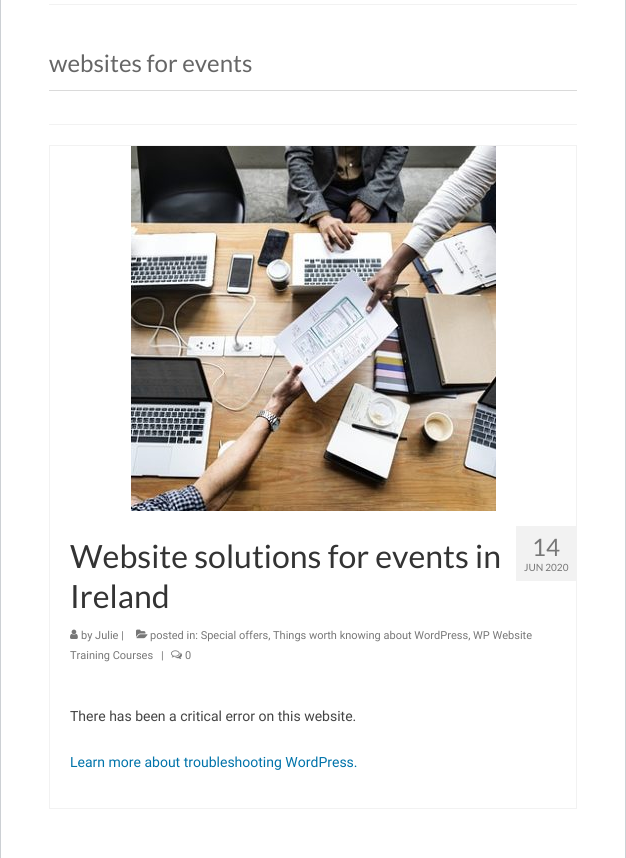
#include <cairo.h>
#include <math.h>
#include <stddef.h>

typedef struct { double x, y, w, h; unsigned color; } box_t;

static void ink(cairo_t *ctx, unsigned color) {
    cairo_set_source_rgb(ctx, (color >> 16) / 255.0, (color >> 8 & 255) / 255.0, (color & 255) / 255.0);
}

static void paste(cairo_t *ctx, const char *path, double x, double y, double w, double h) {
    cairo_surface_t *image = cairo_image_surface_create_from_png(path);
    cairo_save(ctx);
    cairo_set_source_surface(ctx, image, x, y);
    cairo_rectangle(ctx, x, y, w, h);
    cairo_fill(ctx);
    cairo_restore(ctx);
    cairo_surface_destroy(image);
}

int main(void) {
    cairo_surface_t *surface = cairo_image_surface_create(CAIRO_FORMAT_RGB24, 626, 858);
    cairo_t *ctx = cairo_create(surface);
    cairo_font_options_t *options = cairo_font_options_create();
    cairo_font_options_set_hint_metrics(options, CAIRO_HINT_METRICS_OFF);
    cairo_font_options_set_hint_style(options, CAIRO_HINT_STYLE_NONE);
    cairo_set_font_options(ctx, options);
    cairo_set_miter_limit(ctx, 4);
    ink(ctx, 0xFFFFFF);
    cairo_paint(ctx);
    cairo_rectangle(ctx, 0.5, -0.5, 625, 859);
    ink(ctx, 0xCCD0D4);
    cairo_set_line_width(ctx, 1);
    cairo_stroke(ctx);
    {
        static const box_t items[] = {
            {49, 4, 528, 1, 0xF2F2F2},
            {49, 124, 528, 1, 0xF2F2F2},
            {49, 90, 528, 1, 0xDADADA},
        };
        for (size_t i = 0; i < sizeof items / sizeof *items; i++) {
            ink(ctx, items[i].color);
            cairo_rectangle(ctx, items[i].x, items[i].y, items[i].w, items[i].h);
            cairo_fill(ctx);
        }
    }
    cairo_select_font_face(ctx, "Lato", CAIRO_FONT_SLANT_NORMAL, CAIRO_FONT_WEIGHT_NORMAL);
    cairo_set_font_size(ctx, 24);
    ink(ctx, 0x666666);
    cairo_move_to(ctx, 49, 72);
    cairo_show_text(ctx, "websites for events");
    cairo_rectangle(ctx, 49.5, 145.5, 527, 663);
    ink(ctx, 0xF2F2F2);
    cairo_stroke(ctx);
    paste(ctx, "media/1.png", 131, 146, 365, 365);
    cairo_set_font_size(ctx, 32);
    ink(ctx, 0x333333);
    cairo_move_to(ctx, 70, 568);
    cairo_show_text(ctx, "Website solutions for events in");
    cairo_move_to(ctx, 70, 608);
    cairo_show_text(ctx, "Ireland");
    paste(ctx, "media/2.png", 136, 629, 12, 10);
    cairo_select_font_face(ctx, "Roboto", CAIRO_FONT_SLANT_NORMAL, CAIRO_FONT_WEIGHT_NORMAL);
    cairo_set_font_size(ctx, 11);
    ink(ctx, 0x777777);
    cairo_move_to(ctx, 150, 639);
    cairo_show_text(ctx, "posted in: Special offers, Things worth knowing about WordPress, WP Website");
    cairo_move_to(ctx, 70, 659);
    cairo_show_text(ctx, "Training Courses");
    paste(ctx, "media/3.png", 70, 629, 8, 10);
    cairo_move_to(ctx, 81, 639);
    cairo_show_text(ctx, "by Julie |");
    cairo_move_to(ctx, 161, 659);
    cairo_show_text(ctx, "|");
    paste(ctx, "media/4.png", 171, 650, 11, 9);
    cairo_move_to(ctx, 185, 659);
    cairo_show_text(ctx, "0");
    ink(ctx, 0xF2F2F2);
    cairo_rectangle(ctx, 516, 526, 60, 55);
    cairo_fill(ctx);
    cairo_select_font_face(ctx, "Lato", CAIRO_FONT_SLANT_NORMAL, CAIRO_FONT_WEIGHT_NORMAL);
    cairo_set_font_size(ctx, 24);
    ink(ctx, 0x777777);
    cairo_move_to(ctx, 532, 556);
    cairo_show_text(ctx, "14");
    cairo_set_font_size(ctx, 10);
    cairo_move_to(ctx, 524, 571);
    cairo_show_text(ctx, "JUN 2020");
    cairo_select_font_face(ctx, "Roboto", CAIRO_FONT_SLANT_NORMAL, CAIRO_FONT_WEIGHT_NORMAL);
    cairo_set_font_size(ctx, 14);
    ink(ctx, 0x444444);
    cairo_move_to(ctx, 70, 721);
    cairo_show_text(ctx, "There has been a critical error on this website.");
    ink(ctx, 0x0073AA);
    cairo_move_to(ctx, 70, 767);
    cairo_show_text(ctx, "Learn more about troubleshooting WordPress.");
    cairo_surface_write_to_png(surface, "image.png");
    cairo_font_options_destroy(options);
    cairo_destroy(ctx);
    cairo_surface_destroy(surface);
    return 0;
}
